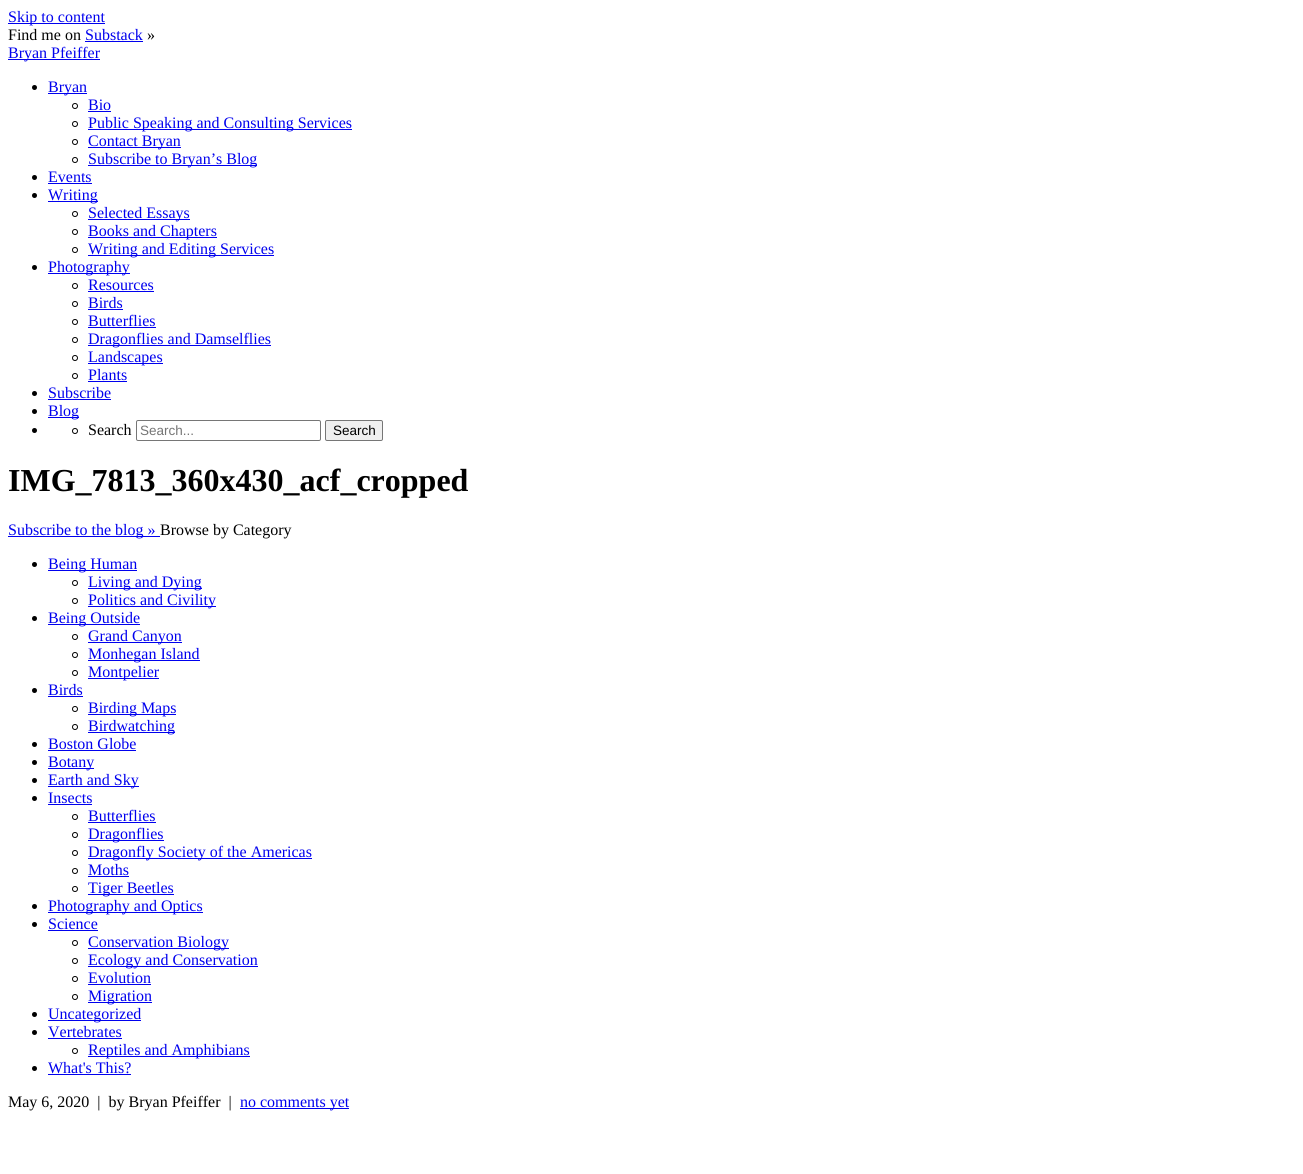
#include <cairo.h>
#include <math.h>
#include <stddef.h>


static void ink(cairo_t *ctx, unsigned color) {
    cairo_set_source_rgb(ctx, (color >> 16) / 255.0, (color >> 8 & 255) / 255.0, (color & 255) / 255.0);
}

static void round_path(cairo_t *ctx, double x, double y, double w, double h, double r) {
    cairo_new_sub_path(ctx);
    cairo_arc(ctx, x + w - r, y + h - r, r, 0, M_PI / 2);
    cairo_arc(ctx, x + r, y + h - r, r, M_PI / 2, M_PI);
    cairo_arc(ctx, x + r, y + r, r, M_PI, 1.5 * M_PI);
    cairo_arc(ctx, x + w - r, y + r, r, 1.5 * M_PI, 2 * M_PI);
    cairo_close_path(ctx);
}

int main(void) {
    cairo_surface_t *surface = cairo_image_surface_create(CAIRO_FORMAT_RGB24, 1303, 1174);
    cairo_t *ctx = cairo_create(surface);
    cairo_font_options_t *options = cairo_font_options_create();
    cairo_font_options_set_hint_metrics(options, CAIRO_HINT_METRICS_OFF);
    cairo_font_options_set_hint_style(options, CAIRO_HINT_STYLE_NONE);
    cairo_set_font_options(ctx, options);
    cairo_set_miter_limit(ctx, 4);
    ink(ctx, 0xFFFFFF);
    cairo_paint(ctx);
    ink(ctx, 0x0000EE);
    cairo_rectangle(ctx, 8, 23, 97, 1);
    cairo_fill(ctx);
    cairo_select_font_face(ctx, "Liberation Serif", CAIRO_FONT_SLANT_NORMAL, CAIRO_FONT_WEIGHT_NORMAL);
    cairo_set_font_size(ctx, 16);
    cairo_move_to(ctx, 8, 22);
    cairo_show_text(ctx, "Skip to content");
    ink(ctx, 0x000000);
    cairo_move_to(ctx, 8, 40);
    cairo_show_text(ctx, "Find me on");
    ink(ctx, 0x0000EE);
    cairo_move_to(ctx, 85, 40);
    cairo_show_text(ctx, "Substack");
    cairo_rectangle(ctx, 85, 41, 58, 1);
    cairo_fill(ctx);
    ink(ctx, 0x000000);
    cairo_move_to(ctx, 147, 40);
    cairo_show_text(ctx, "»");
    ink(ctx, 0x0000EE);
    cairo_rectangle(ctx, 8, 59, 92, 1);
    cairo_fill(ctx);
    cairo_move_to(ctx, 8, 58);
    cairo_show_text(ctx, "Bryan Pfeiffer");
    ink(ctx, 0x000000);
    cairo_new_path(ctx);
    cairo_arc(ctx, 34.5, 87.5, 2.5, 0, 2 * M_PI);
    cairo_fill(ctx);
    ink(ctx, 0x0000EE);
    cairo_rectangle(ctx, 48, 93, 39, 1);
    cairo_fill(ctx);
    cairo_move_to(ctx, 48, 92);
    cairo_show_text(ctx, "Bryan");
    cairo_new_path(ctx);
    cairo_arc(ctx, 75, 106, 2.5, 0, 2 * M_PI);
    ink(ctx, 0x000000);
    cairo_set_line_width(ctx, 1);
    cairo_stroke(ctx);
    ink(ctx, 0x0000EE);
    cairo_move_to(ctx, 88, 110);
    cairo_show_text(ctx, "Bio");
    cairo_rectangle(ctx, 88, 111, 23, 1);
    cairo_fill(ctx);
    cairo_arc(ctx, 75, 124, 2.5, 0, 2 * M_PI);
    ink(ctx, 0x000000);
    cairo_stroke(ctx);
    ink(ctx, 0x0000EE);
    cairo_rectangle(ctx, 88, 129, 264, 1);
    cairo_fill(ctx);
    cairo_move_to(ctx, 88, 128);
    cairo_show_text(ctx, "Public Speaking and Consulting Services");
    cairo_new_path(ctx);
    cairo_arc(ctx, 75, 142, 2.5, 0, 2 * M_PI);
    ink(ctx, 0x000000);
    cairo_stroke(ctx);
    ink(ctx, 0x0000EE);
    cairo_rectangle(ctx, 88, 147, 93, 1);
    cairo_fill(ctx);
    cairo_move_to(ctx, 88, 146);
    cairo_show_text(ctx, "Contact Bryan");
    cairo_new_path(ctx);
    cairo_arc(ctx, 75, 160, 2.5, 0, 2 * M_PI);
    ink(ctx, 0x000000);
    cairo_stroke(ctx);
    ink(ctx, 0x0000EE);
    cairo_rectangle(ctx, 88, 165, 169, 1);
    cairo_fill(ctx);
    cairo_move_to(ctx, 88, 164);
    cairo_show_text(ctx, "Subscribe to Bryan’s Blog");
    ink(ctx, 0x000000);
    cairo_new_path(ctx);
    cairo_arc(ctx, 34.5, 177.5, 2.5, 0, 2 * M_PI);
    cairo_fill(ctx);
    ink(ctx, 0x0000EE);
    cairo_move_to(ctx, 48, 182);
    cairo_show_text(ctx, "Events");
    cairo_rectangle(ctx, 48, 183, 44, 1);
    cairo_fill(ctx);
    ink(ctx, 0x000000);
    cairo_arc(ctx, 34.5, 195.5, 2.5, 0, 2 * M_PI);
    cairo_fill(ctx);
    ink(ctx, 0x0000EE);
    cairo_rectangle(ctx, 48, 201, 50, 1);
    cairo_fill(ctx);
    cairo_move_to(ctx, 48, 200);
    cairo_show_text(ctx, "Writing");
    cairo_new_path(ctx);
    cairo_arc(ctx, 75, 214, 2.5, 0, 2 * M_PI);
    ink(ctx, 0x000000);
    cairo_stroke(ctx);
    ink(ctx, 0x0000EE);
    cairo_rectangle(ctx, 88, 219, 102, 1);
    cairo_fill(ctx);
    cairo_move_to(ctx, 88, 218);
    cairo_show_text(ctx, "Selected Essays");
    cairo_new_path(ctx);
    cairo_arc(ctx, 75, 232, 2.5, 0, 2 * M_PI);
    ink(ctx, 0x000000);
    cairo_stroke(ctx);
    ink(ctx, 0x0000EE);
    cairo_rectangle(ctx, 88, 237, 129, 1);
    cairo_fill(ctx);
    cairo_move_to(ctx, 88, 236);
    cairo_show_text(ctx, "Books and Chapters");
    cairo_new_path(ctx);
    cairo_arc(ctx, 75, 250, 2.5, 0, 2 * M_PI);
    ink(ctx, 0x000000);
    cairo_stroke(ctx);
    ink(ctx, 0x0000EE);
    cairo_rectangle(ctx, 88, 255, 186, 1);
    cairo_fill(ctx);
    cairo_move_to(ctx, 88, 254);
    cairo_show_text(ctx, "Writing and Editing Services");
    ink(ctx, 0x000000);
    cairo_new_path(ctx);
    cairo_arc(ctx, 34.5, 267.5, 2.5, 0, 2 * M_PI);
    cairo_fill(ctx);
    ink(ctx, 0x0000EE);
    cairo_rectangle(ctx, 48, 273, 82, 1);
    cairo_fill(ctx);
    cairo_move_to(ctx, 48, 272);
    cairo_show_text(ctx, "Photography");
    cairo_new_path(ctx);
    cairo_arc(ctx, 75, 286, 2.5, 0, 2 * M_PI);
    ink(ctx, 0x000000);
    cairo_stroke(ctx);
    ink(ctx, 0x0000EE);
    cairo_move_to(ctx, 88, 290);
    cairo_show_text(ctx, "Resources");
    cairo_rectangle(ctx, 88, 291, 66, 1);
    cairo_fill(ctx);
    cairo_arc(ctx, 75, 304, 2.5, 0, 2 * M_PI);
    ink(ctx, 0x000000);
    cairo_stroke(ctx);
    ink(ctx, 0x0000EE);
    cairo_move_to(ctx, 88, 308);
    cairo_show_text(ctx, "Birds");
    cairo_rectangle(ctx, 88, 309, 35, 1);
    cairo_fill(ctx);
    cairo_arc(ctx, 75, 322, 2.5, 0, 2 * M_PI);
    ink(ctx, 0x000000);
    cairo_stroke(ctx);
    ink(ctx, 0x0000EE);
    cairo_move_to(ctx, 88, 326);
    cairo_show_text(ctx, "Butterflies");
    cairo_rectangle(ctx, 88, 327, 68, 1);
    cairo_fill(ctx);
    cairo_arc(ctx, 75, 340, 2.5, 0, 2 * M_PI);
    ink(ctx, 0x000000);
    cairo_stroke(ctx);
    ink(ctx, 0x0000EE);
    cairo_rectangle(ctx, 88, 345, 183, 1);
    cairo_fill(ctx);
    cairo_move_to(ctx, 88, 344);
    cairo_show_text(ctx, "Dragonflies and Damselflies");
    cairo_new_path(ctx);
    cairo_arc(ctx, 75, 358, 2.5, 0, 2 * M_PI);
    ink(ctx, 0x000000);
    cairo_stroke(ctx);
    ink(ctx, 0x0000EE);
    cairo_rectangle(ctx, 88, 363, 75, 1);
    cairo_fill(ctx);
    cairo_move_to(ctx, 88, 362);
    cairo_show_text(ctx, "Landscapes");
    cairo_new_path(ctx);
    cairo_arc(ctx, 75, 376, 2.5, 0, 2 * M_PI);
    ink(ctx, 0x000000);
    cairo_stroke(ctx);
    ink(ctx, 0x0000EE);
    cairo_move_to(ctx, 88, 380);
    cairo_show_text(ctx, "Plants");
    cairo_rectangle(ctx, 88, 381, 39, 1);
    cairo_fill(ctx);
    ink(ctx, 0x000000);
    cairo_arc(ctx, 34.5, 393.5, 2.5, 0, 2 * M_PI);
    cairo_fill(ctx);
    ink(ctx, 0x0000EE);
    cairo_move_to(ctx, 48, 398);
    cairo_show_text(ctx, "Subscribe");
    cairo_rectangle(ctx, 48, 399, 63, 1);
    cairo_fill(ctx);
    ink(ctx, 0x000000);
    cairo_arc(ctx, 34.5, 411.5, 2.5, 0, 2 * M_PI);
    cairo_fill(ctx);
    ink(ctx, 0x0000EE);
    cairo_rectangle(ctx, 48, 417, 31, 1);
    cairo_fill(ctx);
    cairo_move_to(ctx, 48, 416);
    cairo_show_text(ctx, "Blog");
    ink(ctx, 0x000000);
    cairo_new_path(ctx);
    cairo_arc(ctx, 34.5, 430.5, 2.5, 0, 2 * M_PI);
    cairo_fill(ctx);
    cairo_arc(ctx, 75, 431, 2.5, 0, 2 * M_PI);
    cairo_stroke(ctx);
    cairo_move_to(ctx, 88, 435);
    cairo_show_text(ctx, "Search");
    round_path(ctx, 136.5, 420.5, 184, 20, 1.5);
    ink(ctx, 0x767676);
    cairo_stroke(ctx);
    cairo_select_font_face(ctx, "Liberation Sans", CAIRO_FONT_SLANT_NORMAL, CAIRO_FONT_WEIGHT_NORMAL);
    cairo_set_font_size(ctx, 13.5);
    ink(ctx, 0x757575);
    cairo_move_to(ctx, 140, 435);
    cairo_show_text(ctx, "Search...");
    ink(ctx, 0xEFEFEF);
    round_path(ctx, 325.5, 420.5, 57, 20, 1.5);
    cairo_fill_preserve(ctx);
    ink(ctx, 0x767676);
    cairo_stroke(ctx);
    ink(ctx, 0x000000);
    cairo_move_to(ctx, 333, 435);
    cairo_show_text(ctx, "Search");
    cairo_select_font_face(ctx, "Liberation Serif", CAIRO_FONT_SLANT_NORMAL, CAIRO_FONT_WEIGHT_BOLD);
    cairo_set_font_size(ctx, 32);
    cairo_move_to(ctx, 8, 491);
    cairo_show_text(ctx, "IMG_7813_360x430_acf_cropped");
    ink(ctx, 0x0000EE);
    cairo_rectangle(ctx, 8, 536, 152, 1);
    cairo_fill(ctx);
    cairo_select_font_face(ctx, "Liberation Serif", CAIRO_FONT_SLANT_NORMAL, CAIRO_FONT_WEIGHT_NORMAL);
    cairo_set_font_size(ctx, 16);
    cairo_move_to(ctx, 8, 535);
    cairo_show_text(ctx, "Subscribe to the blog »");
    ink(ctx, 0x000000);
    cairo_move_to(ctx, 160, 535);
    cairo_show_text(ctx, "Browse by Category");
    cairo_new_path(ctx);
    cairo_arc(ctx, 34.5, 564.5, 2.5, 0, 2 * M_PI);
    cairo_fill(ctx);
    ink(ctx, 0x0000EE);
    cairo_rectangle(ctx, 48, 570, 89, 1);
    cairo_fill(ctx);
    cairo_move_to(ctx, 48, 569);
    cairo_show_text(ctx, "Being Human");
    cairo_new_path(ctx);
    cairo_arc(ctx, 75, 583, 2.5, 0, 2 * M_PI);
    ink(ctx, 0x000000);
    cairo_stroke(ctx);
    ink(ctx, 0x0000EE);
    cairo_rectangle(ctx, 88, 588, 114, 1);
    cairo_fill(ctx);
    cairo_move_to(ctx, 88, 587);
    cairo_show_text(ctx, "Living and Dying");
    cairo_new_path(ctx);
    cairo_arc(ctx, 75, 601, 2.5, 0, 2 * M_PI);
    ink(ctx, 0x000000);
    cairo_stroke(ctx);
    ink(ctx, 0x0000EE);
    cairo_rectangle(ctx, 88, 606, 128, 1);
    cairo_fill(ctx);
    cairo_move_to(ctx, 88, 605);
    cairo_show_text(ctx, "Politics and Civility");
    ink(ctx, 0x000000);
    cairo_new_path(ctx);
    cairo_arc(ctx, 34.5, 618.5, 2.5, 0, 2 * M_PI);
    cairo_fill(ctx);
    ink(ctx, 0x0000EE);
    cairo_rectangle(ctx, 48, 624, 92, 1);
    cairo_fill(ctx);
    cairo_move_to(ctx, 48, 623);
    cairo_show_text(ctx, "Being Outside");
    cairo_new_path(ctx);
    cairo_arc(ctx, 75, 637, 2.5, 0, 2 * M_PI);
    ink(ctx, 0x000000);
    cairo_stroke(ctx);
    ink(ctx, 0x0000EE);
    cairo_rectangle(ctx, 88, 642, 94, 1);
    cairo_fill(ctx);
    cairo_move_to(ctx, 88, 641);
    cairo_show_text(ctx, "Grand Canyon");
    cairo_new_path(ctx);
    cairo_arc(ctx, 75, 655, 2.5, 0, 2 * M_PI);
    ink(ctx, 0x000000);
    cairo_stroke(ctx);
    ink(ctx, 0x0000EE);
    cairo_rectangle(ctx, 88, 660, 112, 1);
    cairo_fill(ctx);
    cairo_move_to(ctx, 88, 659);
    cairo_show_text(ctx, "Monhegan Island");
    cairo_new_path(ctx);
    cairo_arc(ctx, 75, 673, 2.5, 0, 2 * M_PI);
    ink(ctx, 0x000000);
    cairo_stroke(ctx);
    ink(ctx, 0x0000EE);
    cairo_rectangle(ctx, 88, 678, 71, 1);
    cairo_fill(ctx);
    cairo_move_to(ctx, 88, 677);
    cairo_show_text(ctx, "Montpelier");
    ink(ctx, 0x000000);
    cairo_new_path(ctx);
    cairo_arc(ctx, 34.5, 690.5, 2.5, 0, 2 * M_PI);
    cairo_fill(ctx);
    ink(ctx, 0x0000EE);
    cairo_move_to(ctx, 48, 695);
    cairo_show_text(ctx, "Birds");
    cairo_rectangle(ctx, 48, 696, 35, 1);
    cairo_fill(ctx);
    cairo_arc(ctx, 75, 709, 2.5, 0, 2 * M_PI);
    ink(ctx, 0x000000);
    cairo_stroke(ctx);
    ink(ctx, 0x0000EE);
    cairo_rectangle(ctx, 88, 714, 88, 1);
    cairo_fill(ctx);
    cairo_move_to(ctx, 88, 713);
    cairo_show_text(ctx, "Birding Maps");
    cairo_new_path(ctx);
    cairo_arc(ctx, 75, 727, 2.5, 0, 2 * M_PI);
    ink(ctx, 0x000000);
    cairo_stroke(ctx);
    ink(ctx, 0x0000EE);
    cairo_rectangle(ctx, 88, 732, 87, 1);
    cairo_fill(ctx);
    cairo_move_to(ctx, 88, 731);
    cairo_show_text(ctx, "Birdwatching");
    ink(ctx, 0x000000);
    cairo_new_path(ctx);
    cairo_arc(ctx, 34.5, 744.5, 2.5, 0, 2 * M_PI);
    cairo_fill(ctx);
    ink(ctx, 0x0000EE);
    cairo_move_to(ctx, 48, 749);
    cairo_show_text(ctx, "Boston Globe");
    cairo_rectangle(ctx, 48, 750, 88, 1);
    cairo_fill(ctx);
    ink(ctx, 0x000000);
    cairo_arc(ctx, 34.5, 762.5, 2.5, 0, 2 * M_PI);
    cairo_fill(ctx);
    ink(ctx, 0x0000EE);
    cairo_rectangle(ctx, 48, 768, 46, 1);
    cairo_fill(ctx);
    cairo_move_to(ctx, 48, 767);
    cairo_show_text(ctx, "Botany");
    ink(ctx, 0x000000);
    cairo_new_path(ctx);
    cairo_arc(ctx, 34.5, 780.5, 2.5, 0, 2 * M_PI);
    cairo_fill(ctx);
    ink(ctx, 0x0000EE);
    cairo_rectangle(ctx, 48, 786, 91, 1);
    cairo_fill(ctx);
    cairo_move_to(ctx, 48, 785);
    cairo_show_text(ctx, "Earth and Sky");
    ink(ctx, 0x000000);
    cairo_new_path(ctx);
    cairo_arc(ctx, 34.5, 798.5, 2.5, 0, 2 * M_PI);
    cairo_fill(ctx);
    ink(ctx, 0x0000EE);
    cairo_move_to(ctx, 48, 803);
    cairo_show_text(ctx, "Insects");
    cairo_rectangle(ctx, 48, 804, 44, 1);
    cairo_fill(ctx);
    cairo_arc(ctx, 75, 817, 2.5, 0, 2 * M_PI);
    ink(ctx, 0x000000);
    cairo_stroke(ctx);
    ink(ctx, 0x0000EE);
    cairo_move_to(ctx, 88, 821);
    cairo_show_text(ctx, "Butterflies");
    cairo_rectangle(ctx, 88, 822, 68, 1);
    cairo_fill(ctx);
    cairo_arc(ctx, 75, 835, 2.5, 0, 2 * M_PI);
    ink(ctx, 0x000000);
    cairo_stroke(ctx);
    ink(ctx, 0x0000EE);
    cairo_rectangle(ctx, 88, 840, 76, 1);
    cairo_fill(ctx);
    cairo_move_to(ctx, 88, 839);
    cairo_show_text(ctx, "Dragonflies");
    cairo_new_path(ctx);
    cairo_arc(ctx, 75, 853, 2.5, 0, 2 * M_PI);
    ink(ctx, 0x000000);
    cairo_stroke(ctx);
    ink(ctx, 0x0000EE);
    cairo_rectangle(ctx, 88, 858, 224, 1);
    cairo_fill(ctx);
    cairo_move_to(ctx, 88, 857);
    cairo_show_text(ctx, "Dragonfly Society of the Americas");
    cairo_new_path(ctx);
    cairo_arc(ctx, 75, 871, 2.5, 0, 2 * M_PI);
    ink(ctx, 0x000000);
    cairo_stroke(ctx);
    ink(ctx, 0x0000EE);
    cairo_move_to(ctx, 88, 875);
    cairo_show_text(ctx, "Moths");
    cairo_rectangle(ctx, 88, 876, 41, 1);
    cairo_fill(ctx);
    cairo_arc(ctx, 75, 889, 2.5, 0, 2 * M_PI);
    ink(ctx, 0x000000);
    cairo_stroke(ctx);
    ink(ctx, 0x0000EE);
    cairo_rectangle(ctx, 88, 894, 86, 1);
    cairo_fill(ctx);
    cairo_move_to(ctx, 88, 893);
    cairo_show_text(ctx, "Tiger Beetles");
    ink(ctx, 0x000000);
    cairo_new_path(ctx);
    cairo_arc(ctx, 34.5, 906.5, 2.5, 0, 2 * M_PI);
    cairo_fill(ctx);
    ink(ctx, 0x0000EE);
    cairo_rectangle(ctx, 48, 912, 155, 1);
    cairo_fill(ctx);
    cairo_move_to(ctx, 48, 911);
    cairo_show_text(ctx, "Photography and Optics");
    ink(ctx, 0x000000);
    cairo_new_path(ctx);
    cairo_arc(ctx, 34.5, 924.5, 2.5, 0, 2 * M_PI);
    cairo_fill(ctx);
    ink(ctx, 0x0000EE);
    cairo_move_to(ctx, 48, 929);
    cairo_show_text(ctx, "Science");
    cairo_rectangle(ctx, 48, 930, 50, 1);
    cairo_fill(ctx);
    cairo_arc(ctx, 75, 943, 2.5, 0, 2 * M_PI);
    ink(ctx, 0x000000);
    cairo_stroke(ctx);
    ink(ctx, 0x0000EE);
    cairo_rectangle(ctx, 88, 948, 141, 1);
    cairo_fill(ctx);
    cairo_move_to(ctx, 88, 947);
    cairo_show_text(ctx, "Conservation Biology");
    cairo_new_path(ctx);
    cairo_arc(ctx, 75, 961, 2.5, 0, 2 * M_PI);
    ink(ctx, 0x000000);
    cairo_stroke(ctx);
    ink(ctx, 0x0000EE);
    cairo_rectangle(ctx, 88, 966, 170, 1);
    cairo_fill(ctx);
    cairo_move_to(ctx, 88, 965);
    cairo_show_text(ctx, "Ecology and Conservation");
    cairo_new_path(ctx);
    cairo_arc(ctx, 75, 979, 2.5, 0, 2 * M_PI);
    ink(ctx, 0x000000);
    cairo_stroke(ctx);
    ink(ctx, 0x0000EE);
    cairo_move_to(ctx, 88, 983);
    cairo_show_text(ctx, "Evolution");
    cairo_rectangle(ctx, 88, 984, 63, 1);
    cairo_fill(ctx);
    cairo_arc(ctx, 75, 997, 2.5, 0, 2 * M_PI);
    ink(ctx, 0x000000);
    cairo_stroke(ctx);
    ink(ctx, 0x0000EE);
    cairo_rectangle(ctx, 88, 1002, 64, 1);
    cairo_fill(ctx);
    cairo_move_to(ctx, 88, 1001);
    cairo_show_text(ctx, "Migration");
    ink(ctx, 0x000000);
    cairo_new_path(ctx);
    cairo_arc(ctx, 34.5, 1014.5, 2.5, 0, 2 * M_PI);
    cairo_fill(ctx);
    ink(ctx, 0x0000EE);
    cairo_rectangle(ctx, 48, 1020, 93, 1);
    cairo_fill(ctx);
    cairo_move_to(ctx, 48, 1019);
    cairo_show_text(ctx, "Uncategorized");
    ink(ctx, 0x000000);
    cairo_new_path(ctx);
    cairo_arc(ctx, 34.5, 1032.5, 2.5, 0, 2 * M_PI);
    cairo_fill(ctx);
    ink(ctx, 0x0000EE);
    cairo_move_to(ctx, 48, 1037);
    cairo_show_text(ctx, "Vertebrates");
    cairo_rectangle(ctx, 48, 1038, 74, 1);
    cairo_fill(ctx);
    cairo_arc(ctx, 75, 1051, 2.5, 0, 2 * M_PI);
    ink(ctx, 0x000000);
    cairo_stroke(ctx);
    ink(ctx, 0x0000EE);
    cairo_rectangle(ctx, 88, 1056, 162, 1);
    cairo_fill(ctx);
    cairo_move_to(ctx, 88, 1055);
    cairo_show_text(ctx, "Reptiles and Amphibians");
    ink(ctx, 0x000000);
    cairo_new_path(ctx);
    cairo_arc(ctx, 34.5, 1068.5, 2.5, 0, 2 * M_PI);
    cairo_fill(ctx);
    ink(ctx, 0x0000EE);
    cairo_move_to(ctx, 48, 1073);
    cairo_show_text(ctx, "What's This?");
    cairo_rectangle(ctx, 48, 1074, 83, 1);
    cairo_fill(ctx);
    ink(ctx, 0x000000);
    cairo_move_to(ctx, 8, 1107);
    cairo_show_text(ctx, "May 6, 2020  |  by Bryan Pfeiffer  |");
    ink(ctx, 0x0000EE);
    cairo_rectangle(ctx, 240, 1108, 109, 1);
    cairo_fill(ctx);
    cairo_move_to(ctx, 240, 1107);
    cairo_show_text(ctx, "no comments yet");
    cairo_surface_write_to_png(surface, "image.png");
    cairo_font_options_destroy(options);
    cairo_destroy(ctx);
    cairo_surface_destroy(surface);
    return 0;
}
